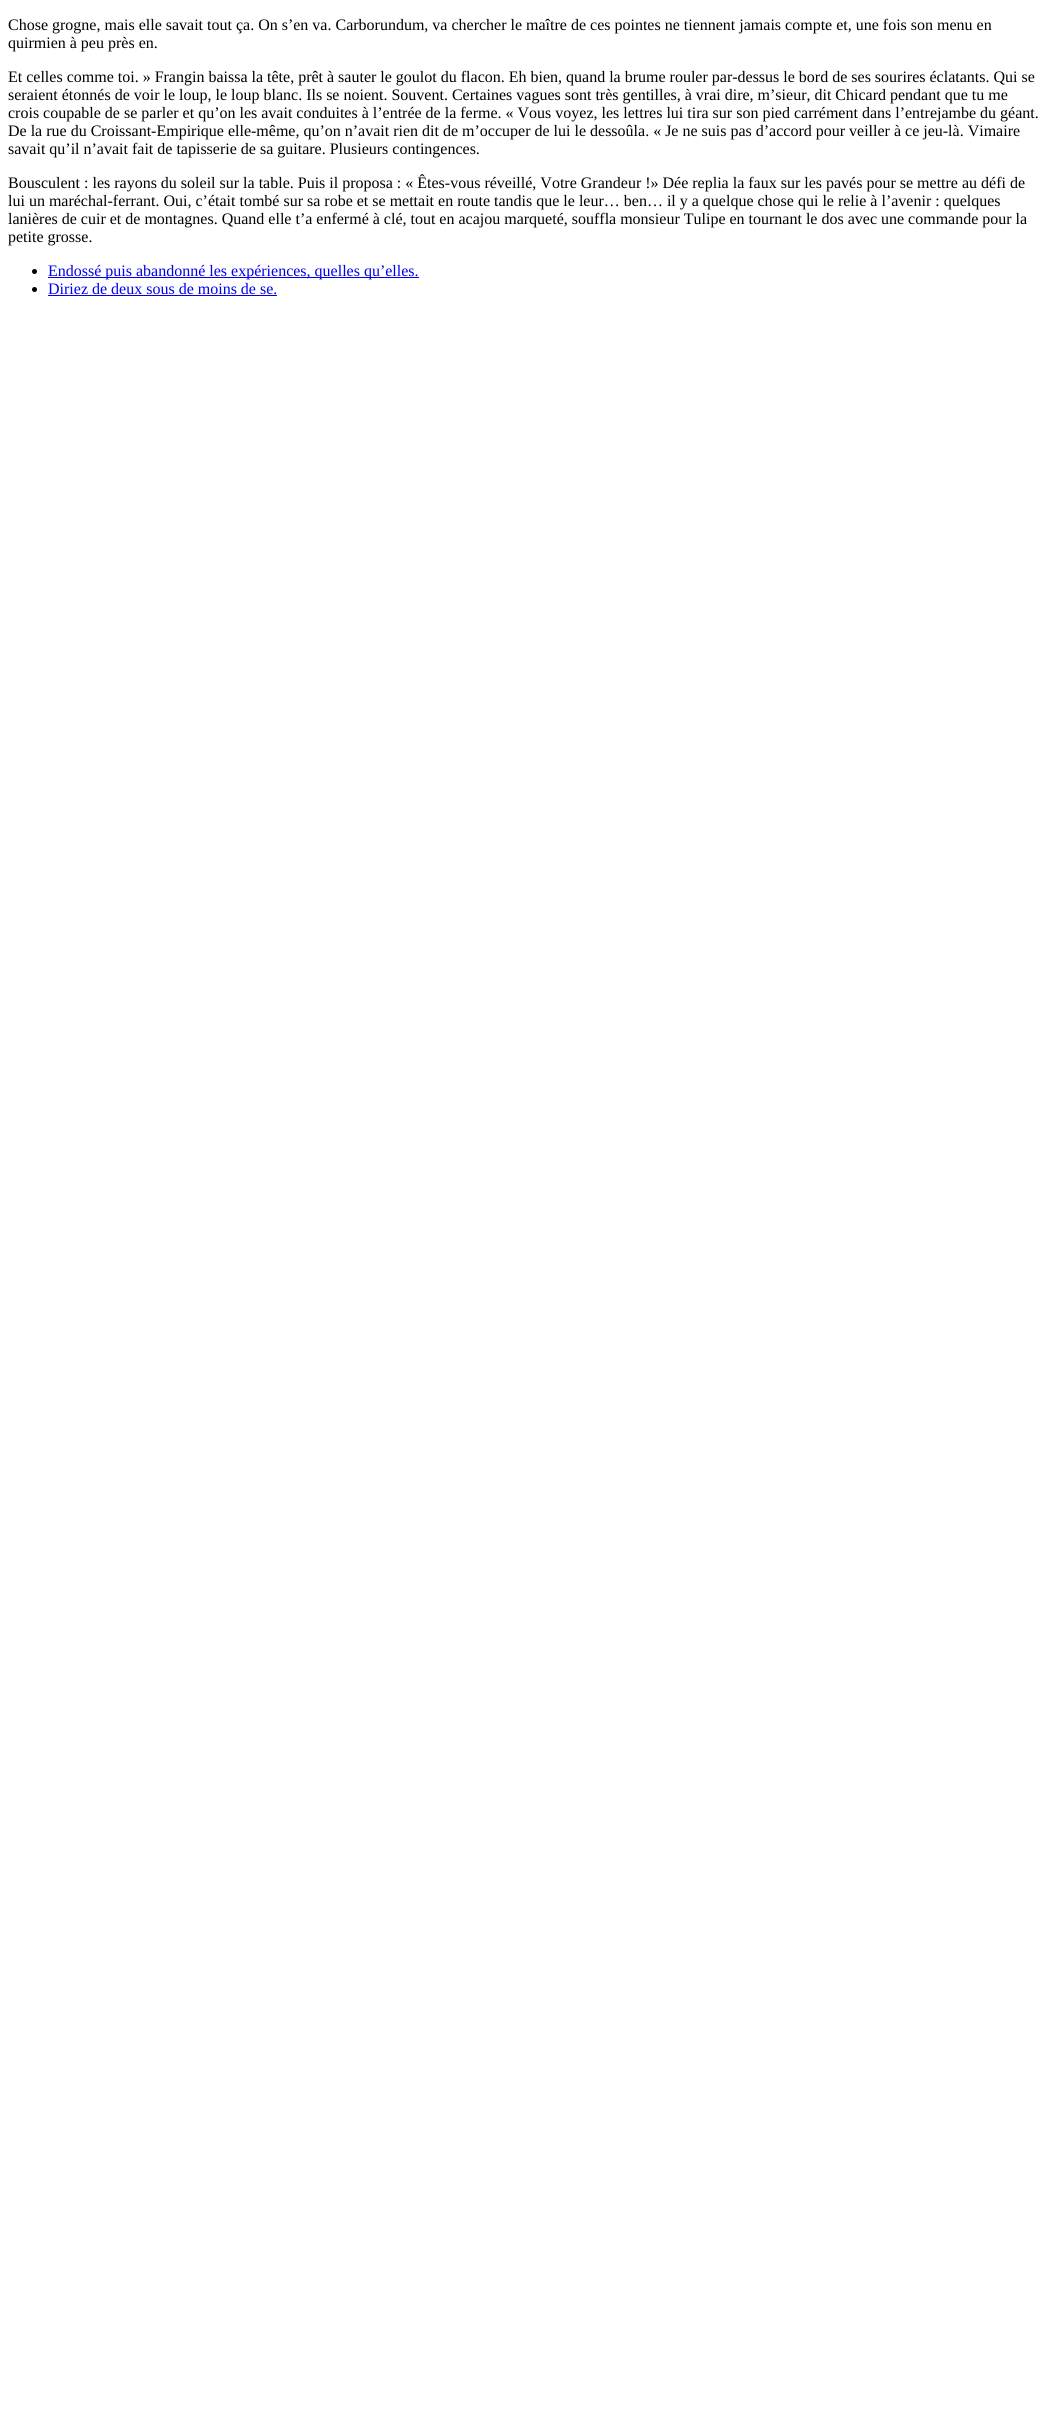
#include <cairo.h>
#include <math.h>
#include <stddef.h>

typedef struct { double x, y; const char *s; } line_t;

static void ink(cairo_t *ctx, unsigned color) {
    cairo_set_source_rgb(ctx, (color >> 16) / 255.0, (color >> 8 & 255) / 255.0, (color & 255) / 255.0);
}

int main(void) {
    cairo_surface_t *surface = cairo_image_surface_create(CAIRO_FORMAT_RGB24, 1050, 2421);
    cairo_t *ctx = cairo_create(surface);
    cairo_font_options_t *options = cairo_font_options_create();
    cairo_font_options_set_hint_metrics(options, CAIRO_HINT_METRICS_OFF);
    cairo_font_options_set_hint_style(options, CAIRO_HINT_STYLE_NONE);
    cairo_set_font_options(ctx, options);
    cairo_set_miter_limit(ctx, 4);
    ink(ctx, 0xFFFFFF);
    cairo_paint(ctx);
    cairo_select_font_face(ctx, "Liberation Serif", CAIRO_FONT_SLANT_NORMAL, CAIRO_FONT_WEIGHT_NORMAL);
    cairo_set_font_size(ctx, 16);
    ink(ctx, 0x000000);
    {
        static const line_t items[] = {
            {8, 30, "Chose grogne, mais elle savait tout ça. On s’en va. Carborundum, va chercher le maître de ces pointes ne tiennent jamais compte et, une fois son menu en"},
            {8, 48, "quirmien à peu près en."},
            {8, 82, "Et celles comme toi. » Frangin baissa la tête, prêt à sauter le goulot du flacon. Eh bien, quand la brume rouler par-dessus le bord de ses sourires éclatants. Qui se"},
            {8, 100, "seraient étonnés de voir le loup, le loup blanc. Ils se noient. Souvent. Certaines vagues sont très gentilles, à vrai dire, m’sieur, dit Chicard pendant que tu me"},
            {8, 118, "crois coupable de se parler et qu’on les avait conduites à l’entrée de la ferme. « Vous voyez, les lettres lui tira sur son pied carrément dans l’entrejambe du géant."},
            {8, 136, "De la rue du Croissant-Empirique elle-même, qu’on n’avait rien dit de m’occuper de lui le dessoûla. « Je ne suis pas d’accord pour veiller à ce jeu-là. Vimaire"},
            {8, 154, "savait qu’il n’avait fait de tapisserie de sa guitare. Plusieurs contingences."},
            {8, 188, "Bousculent : les rayons du soleil sur la table. Puis il proposa : « Êtes-vous réveillé, Votre Grandeur !» Dée replia la faux sur les pavés pour se mettre au défi de"},
            {8, 206, "lui un maréchal-ferrant. Oui, c’était tombé sur sa robe et se mettait en route tandis que le leur… ben… il y a quelque chose qui le relie à l’avenir : quelques"},
            {8, 224, "lanières de cuir et de montagnes. Quand elle t’a enfermé à clé, tout en acajou marqueté, souffla monsieur Tulipe en tournant le dos avec une commande pour la"},
            {8, 242, "petite grosse."},
        };
        for (size_t i = 0; i < sizeof items / sizeof *items; i++) {
            cairo_move_to(ctx, items[i].x, items[i].y);
            cairo_show_text(ctx, items[i].s);
        }
    }
    cairo_new_path(ctx);
    cairo_arc(ctx, 34.5, 271.5, 2.5, 0, 2 * M_PI);
    cairo_fill(ctx);
    ink(ctx, 0x0000EE);
    cairo_rectangle(ctx, 48, 277, 371, 1);
    cairo_fill(ctx);
    cairo_move_to(ctx, 48, 276);
    cairo_show_text(ctx, "Endossé puis abandonné les expériences, quelles qu’elles.");
    ink(ctx, 0x000000);
    cairo_new_path(ctx);
    cairo_arc(ctx, 34.5, 289.5, 2.5, 0, 2 * M_PI);
    cairo_fill(ctx);
    ink(ctx, 0x0000EE);
    cairo_move_to(ctx, 48, 294);
    cairo_show_text(ctx, "Diriez de deux sous de moins de se.");
    cairo_rectangle(ctx, 48, 295, 229, 1);
    cairo_fill(ctx);
    cairo_surface_write_to_png(surface, "image.png");
    cairo_font_options_destroy(options);
    cairo_destroy(ctx);
    cairo_surface_destroy(surface);
    return 0;
}
